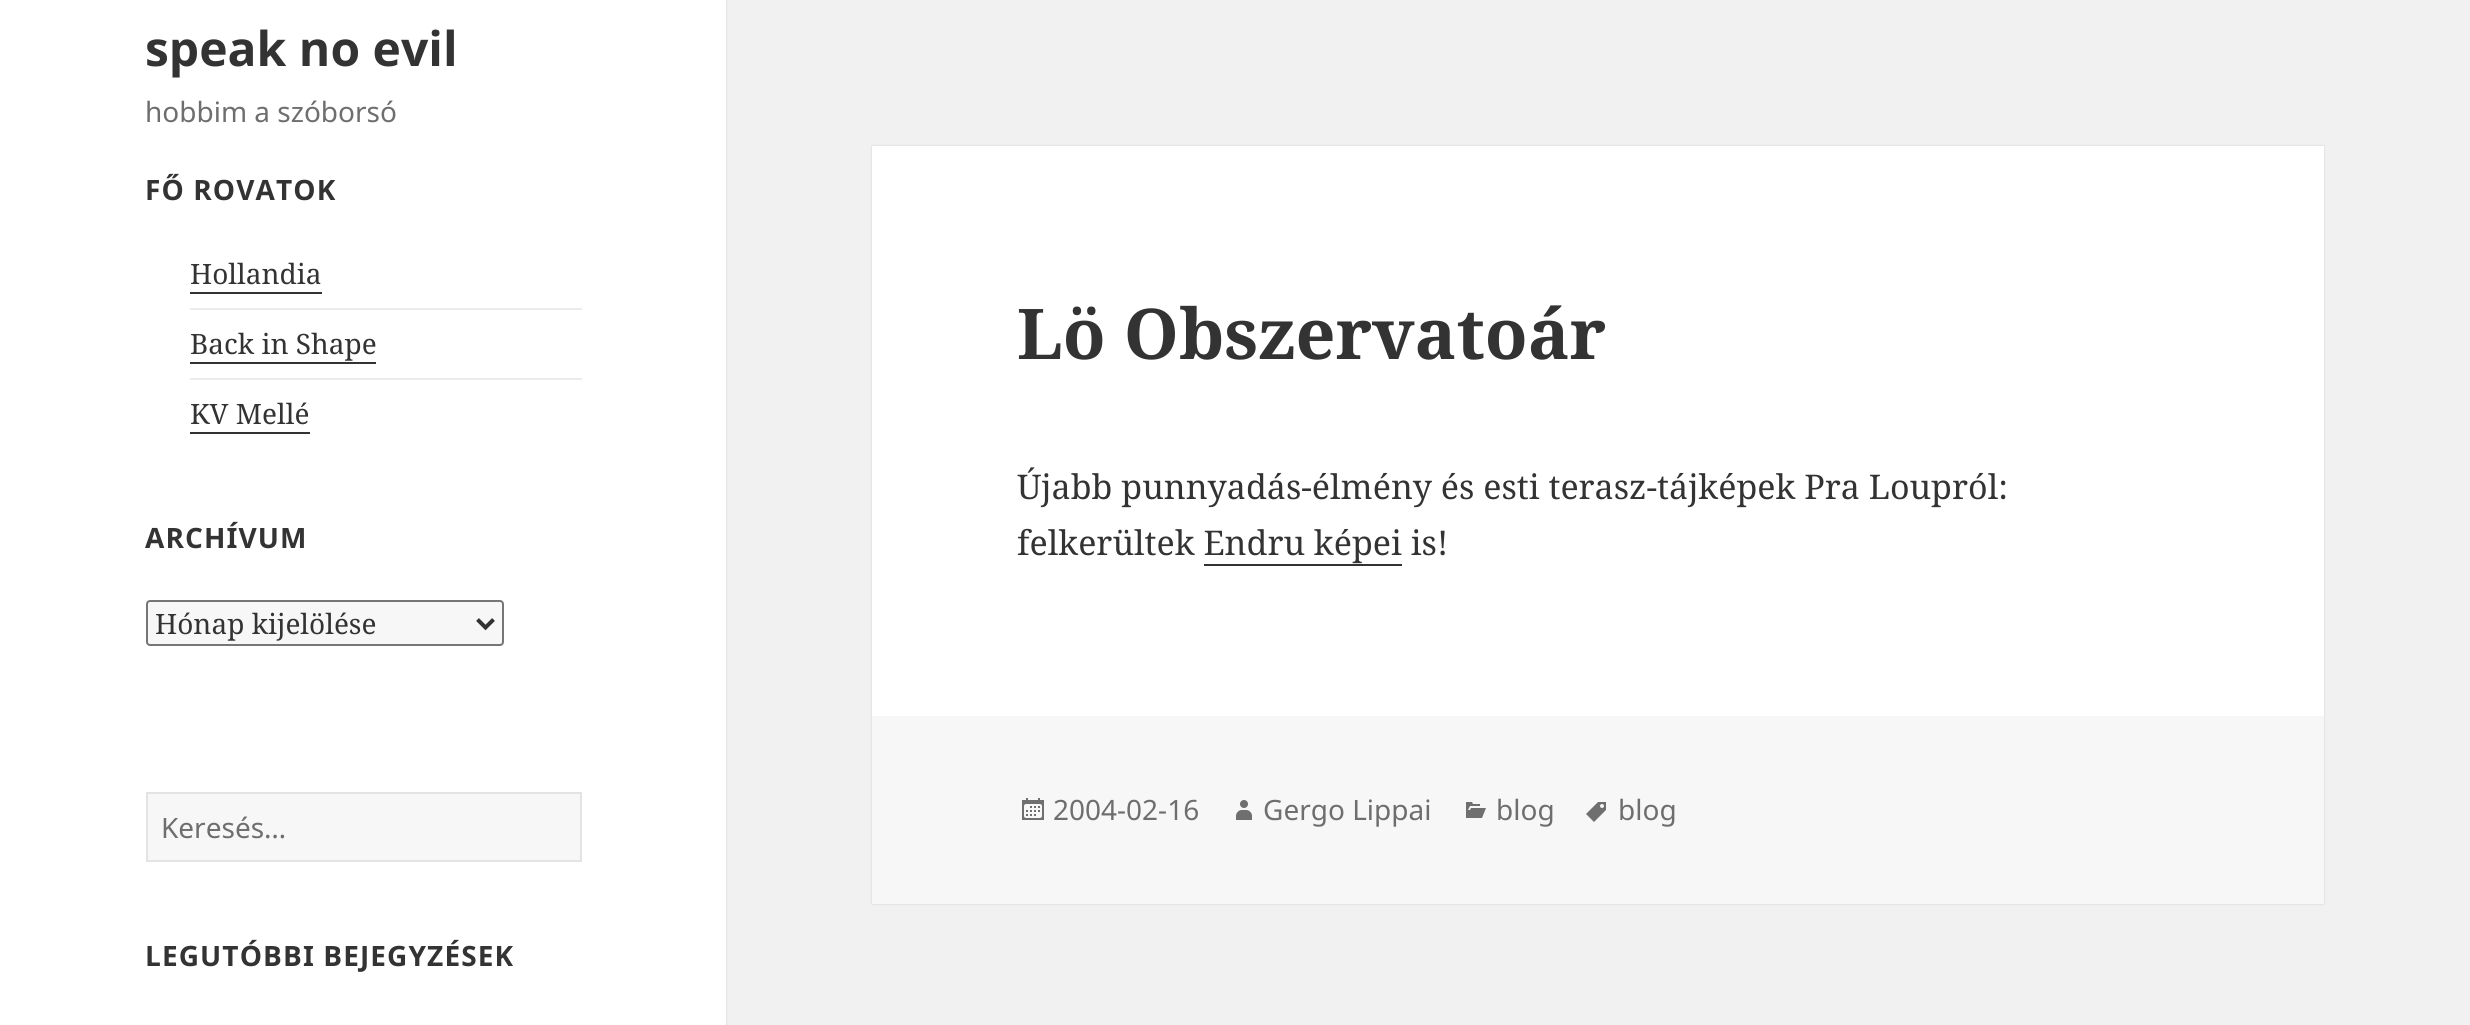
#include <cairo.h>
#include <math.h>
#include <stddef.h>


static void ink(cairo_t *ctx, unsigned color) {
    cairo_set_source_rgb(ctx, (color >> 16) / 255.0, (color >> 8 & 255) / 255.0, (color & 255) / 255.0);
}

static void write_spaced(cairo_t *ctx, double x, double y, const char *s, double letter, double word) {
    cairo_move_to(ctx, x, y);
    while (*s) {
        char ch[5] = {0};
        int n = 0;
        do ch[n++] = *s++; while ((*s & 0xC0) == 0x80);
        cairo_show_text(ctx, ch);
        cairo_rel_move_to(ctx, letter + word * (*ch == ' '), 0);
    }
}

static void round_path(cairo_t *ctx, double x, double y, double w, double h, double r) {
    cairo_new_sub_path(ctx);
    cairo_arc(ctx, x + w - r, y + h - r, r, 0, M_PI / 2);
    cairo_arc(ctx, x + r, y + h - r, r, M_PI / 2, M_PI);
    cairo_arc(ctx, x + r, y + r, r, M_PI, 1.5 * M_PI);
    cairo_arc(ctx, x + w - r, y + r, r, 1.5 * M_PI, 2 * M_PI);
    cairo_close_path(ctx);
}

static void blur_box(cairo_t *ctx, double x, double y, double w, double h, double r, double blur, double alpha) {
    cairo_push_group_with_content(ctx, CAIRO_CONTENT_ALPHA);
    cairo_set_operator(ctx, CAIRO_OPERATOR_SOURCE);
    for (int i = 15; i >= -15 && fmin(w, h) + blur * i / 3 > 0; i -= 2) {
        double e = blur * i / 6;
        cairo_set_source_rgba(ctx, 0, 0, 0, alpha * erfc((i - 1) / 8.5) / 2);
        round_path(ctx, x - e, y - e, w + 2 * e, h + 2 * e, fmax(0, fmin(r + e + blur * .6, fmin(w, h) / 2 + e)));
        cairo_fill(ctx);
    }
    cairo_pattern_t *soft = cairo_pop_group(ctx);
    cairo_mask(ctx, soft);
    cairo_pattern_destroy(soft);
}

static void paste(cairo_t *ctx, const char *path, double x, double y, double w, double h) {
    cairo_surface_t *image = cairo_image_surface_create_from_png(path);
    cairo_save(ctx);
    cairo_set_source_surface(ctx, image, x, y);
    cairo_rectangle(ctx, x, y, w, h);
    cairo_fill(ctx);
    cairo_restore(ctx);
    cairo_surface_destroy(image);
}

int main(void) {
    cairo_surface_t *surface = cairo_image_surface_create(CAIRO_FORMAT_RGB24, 2470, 1025);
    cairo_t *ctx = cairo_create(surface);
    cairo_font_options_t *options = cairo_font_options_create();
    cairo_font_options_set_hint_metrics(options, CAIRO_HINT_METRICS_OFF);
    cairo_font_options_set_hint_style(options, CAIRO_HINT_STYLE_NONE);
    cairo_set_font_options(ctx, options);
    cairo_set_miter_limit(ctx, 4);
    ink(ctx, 0xF1F1F1);
    cairo_paint(ctx);
    ink(ctx, 0x000000);
    blur_box(ctx, 0, 0, 726, 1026, 0, 1, 0.15);
    ink(ctx, 0xFFFFFF);
    cairo_rectangle(ctx, 0, 0, 726, 1025);
    cairo_fill(ctx);
    cairo_select_font_face(ctx, "Noto Sans", CAIRO_FONT_SLANT_NORMAL, CAIRO_FONT_WEIGHT_BOLD);
    cairo_set_font_size(ctx, 48);
    ink(ctx, 0x333333);
    cairo_move_to(ctx, 145, 66);
    cairo_show_text(ctx, "speak no evil");
    cairo_select_font_face(ctx, "Noto Sans", CAIRO_FONT_SLANT_NORMAL, CAIRO_FONT_WEIGHT_NORMAL);
    cairo_set_font_size(ctx, 28);
    ink(ctx, 0x6E6E6E);
    cairo_move_to(ctx, 145, 122);
    cairo_show_text(ctx, "hobbim a szóborsó");
    cairo_select_font_face(ctx, "Noto Sans", CAIRO_FONT_SLANT_NORMAL, CAIRO_FONT_WEIGHT_BOLD);
    ink(ctx, 0x333333);
    write_spaced(ctx, 145, 200, "FŐ ROVATOK", 1.1, 0);
    cairo_select_font_face(ctx, "Noto Serif", CAIRO_FONT_SLANT_NORMAL, CAIRO_FONT_WEIGHT_NORMAL);
    cairo_move_to(ctx, 190, 284);
    cairo_show_text(ctx, "Hollandia");
    cairo_rectangle(ctx, 190, 292, 132, 2);
    cairo_fill(ctx);
    ink(ctx, 0xEBEBEB);
    cairo_rectangle(ctx, 190, 308, 392, 2);
    cairo_fill(ctx);
    ink(ctx, 0x333333);
    cairo_move_to(ctx, 190, 354);
    cairo_show_text(ctx, "Back in Shape");
    cairo_rectangle(ctx, 190, 362, 186, 2);
    cairo_fill(ctx);
    ink(ctx, 0xEBEBEB);
    cairo_rectangle(ctx, 190, 378, 392, 2);
    cairo_fill(ctx);
    ink(ctx, 0x333333);
    cairo_move_to(ctx, 190, 424);
    cairo_show_text(ctx, "KV Mellé");
    cairo_rectangle(ctx, 190, 432, 120, 2);
    cairo_fill(ctx);
    cairo_select_font_face(ctx, "Noto Sans", CAIRO_FONT_SLANT_NORMAL, CAIRO_FONT_WEIGHT_BOLD);
    write_spaced(ctx, 145, 548, "ARCHÍVUM", 1.1, 0);
    ink(ctx, 0xF7F7F7);
    round_path(ctx, 147, 601, 356, 44, 3);
    cairo_fill_preserve(ctx);
    ink(ctx, 0x767676);
    cairo_stroke(ctx);
    cairo_new_path(ctx);
    cairo_move_to(ctx, 477.5, 619.5);
    cairo_line_to(ctx, 485.5, 627.5);
    cairo_line_to(ctx, 493.5, 619.5);
    ink(ctx, 0x333333);
    cairo_set_line_width(ctx, 4);
    cairo_stroke(ctx);
    cairo_select_font_face(ctx, "Noto Serif", CAIRO_FONT_SLANT_NORMAL, CAIRO_FONT_WEIGHT_NORMAL);
    cairo_move_to(ctx, 155, 634);
    cairo_show_text(ctx, "Hónap kijelölése");
    ink(ctx, 0xF7F7F7);
    cairo_rectangle(ctx, 147, 793, 434, 68);
    cairo_fill_preserve(ctx);
    ink(ctx, 0xE3E3E3);
    cairo_set_line_width(ctx, 2);
    cairo_stroke(ctx);
    cairo_select_font_face(ctx, "Noto Sans", CAIRO_FONT_SLANT_NORMAL, CAIRO_FONT_WEIGHT_NORMAL);
    ink(ctx, 0x6E6E6E);
    cairo_move_to(ctx, 161, 838);
    cairo_show_text(ctx, "Keresés…");
    cairo_select_font_face(ctx, "Noto Sans", CAIRO_FONT_SLANT_NORMAL, CAIRO_FONT_WEIGHT_BOLD);
    ink(ctx, 0x333333);
    write_spaced(ctx, 145, 966, "LEGUTÓBBI BEJEGYZÉSEK", 1.1, 0);
    ink(ctx, 0x000000);
    blur_box(ctx, 872, 146, 1452, 758, 0, 1, 0.15);
    ink(ctx, 0xFFFFFF);
    cairo_rectangle(ctx, 872, 146, 1452, 570);
    cairo_fill(ctx);
    cairo_select_font_face(ctx, "Noto Serif", CAIRO_FONT_SLANT_NORMAL, CAIRO_FONT_WEIGHT_BOLD);
    cairo_set_font_size(ctx, 70);
    ink(ctx, 0x333333);
    cairo_move_to(ctx, 1017, 359);
    cairo_show_text(ctx, "Lö Obszervatoár");
    cairo_select_font_face(ctx, "Noto Serif", CAIRO_FONT_SLANT_NORMAL, CAIRO_FONT_WEIGHT_NORMAL);
    cairo_set_font_size(ctx, 34);
    cairo_move_to(ctx, 1017, 499);
    cairo_show_text(ctx, "Újabb punnyadás-élmény és esti terasz-tájképek Pra Loupról:");
    cairo_move_to(ctx, 1017, 555);
    cairo_show_text(ctx, "felkerültek Endru képei is!");
    cairo_rectangle(ctx, 1204, 564, 198, 2);
    cairo_fill(ctx);
    ink(ctx, 0xF7F7F7);
    cairo_rectangle(ctx, 872, 716, 1452, 188);
    cairo_fill(ctx);
    paste(ctx, "media/1.png", 1022, 798, 22, 22);
    cairo_select_font_face(ctx, "Noto Sans", CAIRO_FONT_SLANT_NORMAL, CAIRO_FONT_WEIGHT_NORMAL);
    cairo_set_font_size(ctx, 28);
    ink(ctx, 0x6E6E6E);
    cairo_move_to(ctx, 1053, 820);
    cairo_show_text(ctx, "2004-02-16");
    paste(ctx, "media/2.png", 1236, 800, 16, 20);
    cairo_move_to(ctx, 1263, 820);
    cairo_show_text(ctx, "Gergo Lippai");
    paste(ctx, "media/3.png", 1466, 802, 20, 16);
    cairo_move_to(ctx, 1496, 820);
    cairo_show_text(ctx, "blog");
    paste(ctx, "media/4.png", 1586, 802, 20, 20);
    cairo_move_to(ctx, 1618, 820);
    cairo_show_text(ctx, "blog");
    cairo_surface_write_to_png(surface, "image.png");
    cairo_font_options_destroy(options);
    cairo_destroy(ctx);
    cairo_surface_destroy(surface);
    return 0;
}
